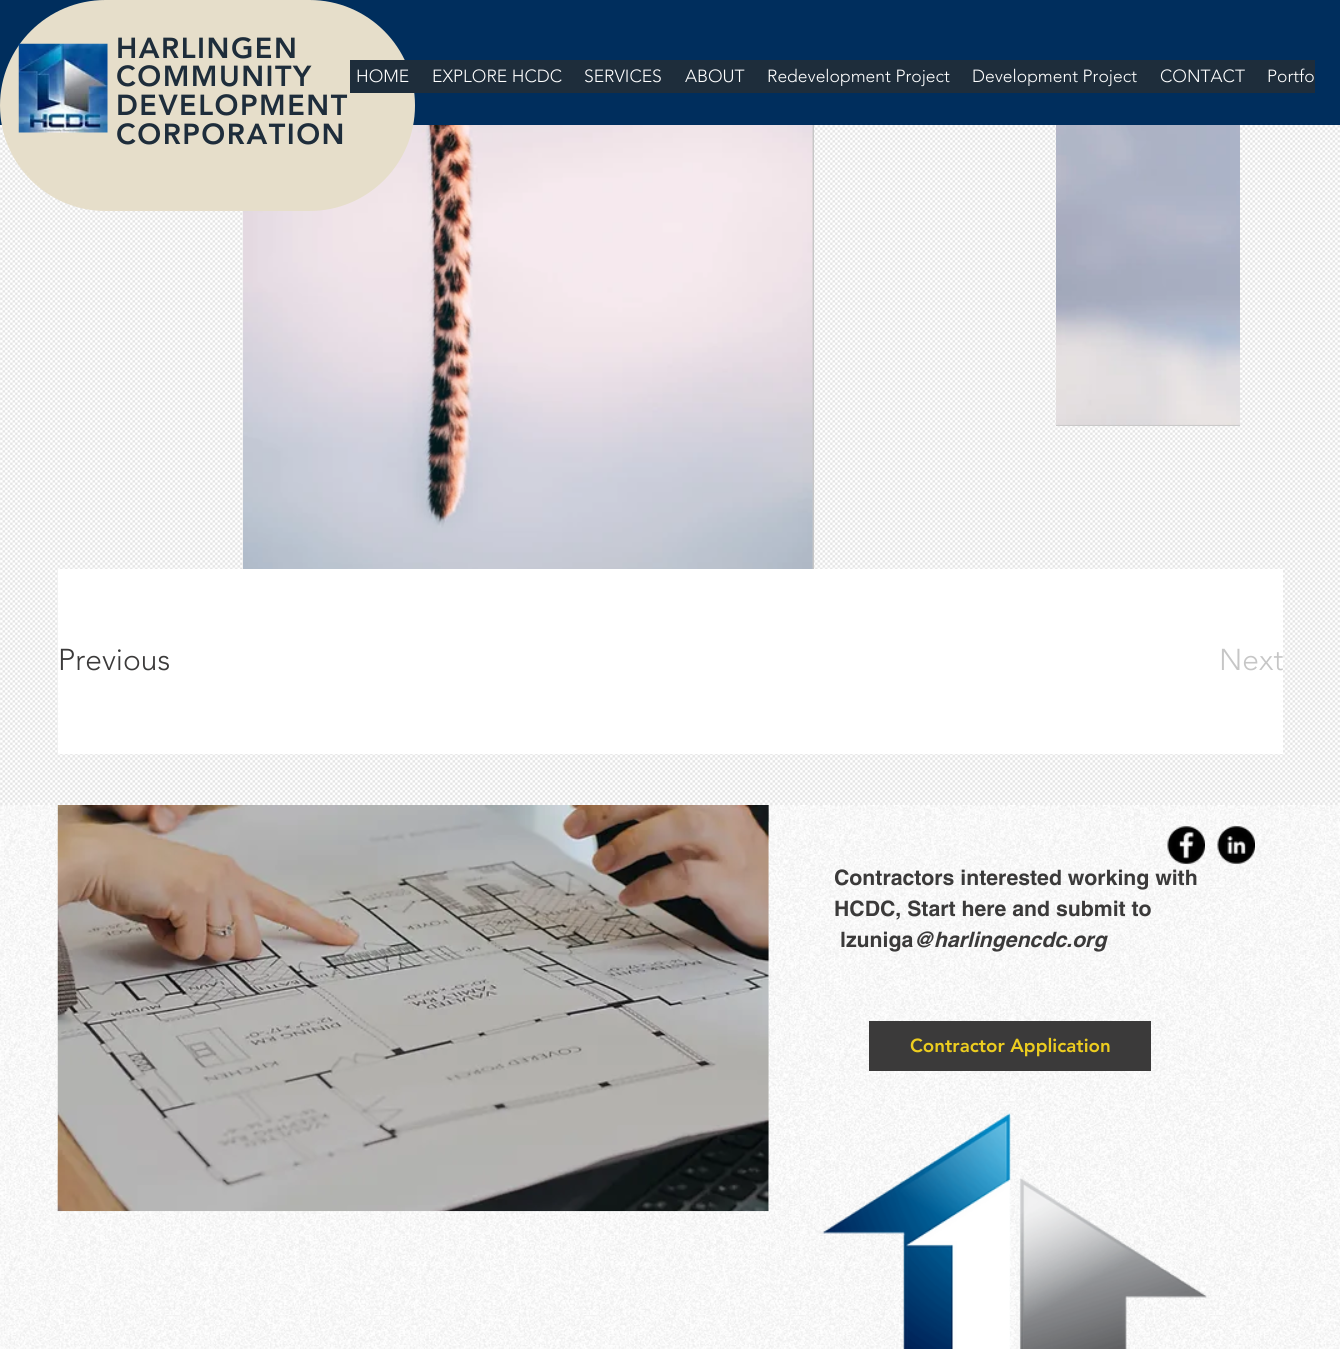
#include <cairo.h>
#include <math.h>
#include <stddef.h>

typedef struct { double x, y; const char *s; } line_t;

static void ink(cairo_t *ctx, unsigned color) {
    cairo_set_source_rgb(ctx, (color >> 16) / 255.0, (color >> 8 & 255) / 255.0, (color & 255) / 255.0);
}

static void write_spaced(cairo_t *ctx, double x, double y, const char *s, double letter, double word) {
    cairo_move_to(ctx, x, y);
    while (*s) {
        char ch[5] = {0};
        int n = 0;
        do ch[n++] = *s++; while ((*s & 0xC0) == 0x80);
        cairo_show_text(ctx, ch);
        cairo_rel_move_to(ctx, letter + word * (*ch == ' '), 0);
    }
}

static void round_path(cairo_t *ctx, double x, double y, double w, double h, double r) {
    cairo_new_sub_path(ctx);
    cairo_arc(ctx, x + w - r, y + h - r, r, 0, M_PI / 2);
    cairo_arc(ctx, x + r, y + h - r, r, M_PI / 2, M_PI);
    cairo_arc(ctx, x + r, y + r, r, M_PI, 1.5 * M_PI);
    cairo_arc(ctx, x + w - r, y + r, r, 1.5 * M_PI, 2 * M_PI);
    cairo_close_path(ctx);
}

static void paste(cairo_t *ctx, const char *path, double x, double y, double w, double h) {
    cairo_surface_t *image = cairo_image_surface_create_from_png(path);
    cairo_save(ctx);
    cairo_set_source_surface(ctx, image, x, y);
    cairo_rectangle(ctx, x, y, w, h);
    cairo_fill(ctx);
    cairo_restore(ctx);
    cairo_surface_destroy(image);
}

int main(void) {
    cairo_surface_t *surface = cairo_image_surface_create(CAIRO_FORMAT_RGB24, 1340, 1349);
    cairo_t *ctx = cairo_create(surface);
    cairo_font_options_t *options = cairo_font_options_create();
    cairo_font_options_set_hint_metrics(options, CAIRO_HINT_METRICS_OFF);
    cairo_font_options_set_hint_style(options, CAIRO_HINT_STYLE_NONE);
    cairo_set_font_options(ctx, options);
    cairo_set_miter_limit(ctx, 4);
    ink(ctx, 0xFFFFFF);
    cairo_paint(ctx);
    ink(ctx, 0x002E5D);
    cairo_rectangle(ctx, 0, 0, 1340, 125);
    cairo_fill(ctx);
    paste(ctx, "media/9.png", 0, 125, 1340, 680);
    ink(ctx, 0xC6C6C6);
    cairo_rectangle(ctx, 812, 125, 2, 444);
    cairo_fill(ctx);
    paste(ctx, "media/2.png", 243, 125, 570, 444);
    ink(ctx, 0xE6DECA);
    round_path(ctx, 0, 0, 415, 211, 105.5);
    cairo_fill(ctx);
    paste(ctx, "media/1.png", 18, 43, 90, 90);
    cairo_select_font_face(ctx, "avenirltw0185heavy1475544 Black", CAIRO_FONT_SLANT_NORMAL, CAIRO_FONT_WEIGHT_NORMAL);
    cairo_set_font_size(ctx, 28.75);
    ink(ctx, 0x1E2D3B);
    {
        static const line_t items[] = {
            {116, 58, "HARLINGEN"},
            {116, 86, "COMMUNITY"},
            {116, 115, "DEVELOPMENT"},
            {116, 144, "CORPORATION"},
        };
        for (size_t i = 0; i < sizeof items / sizeof *items; i++) {
            write_spaced(ctx, items[i].x, items[i].y, items[i].s, 1.5, 0);
        }
    }
    cairo_rectangle(ctx, 350, 60, 965, 33);
    cairo_fill(ctx);
    cairo_select_font_face(ctx, "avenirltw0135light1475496 Light", CAIRO_FONT_SLANT_NORMAL, CAIRO_FONT_WEIGHT_NORMAL);
    cairo_set_font_size(ctx, 17.5);
    ink(ctx, 0xFFFFFF);
    {
        static const line_t items[] = {
            {356, 82, "HOME"},
            {432, 82, "EXPLORE HCDC"},
            {584, 82, "SERVICES"},
            {685, 82, "ABOUT"},
            {767, 82, "Redevelopment Project"},
            {972, 82, "Development Project"},
            {1160, 82, "CONTACT"},
            {1267, 82, "Portfo"},
        };
        for (size_t i = 0; i < sizeof items / sizeof *items; i++) {
            cairo_move_to(ctx, items[i].x, items[i].y);
            cairo_show_text(ctx, items[i].s);
        }
    }
    ink(ctx, 0xC6C6C6);
    cairo_rectangle(ctx, 1056, 424, 184, 2);
    cairo_fill(ctx);
    paste(ctx, "media/3.png", 1056, 125, 184, 301);
    ink(ctx, 0xFFFFFF);
    cairo_rectangle(ctx, 58, 569, 1225, 185);
    cairo_fill(ctx);
    cairo_set_font_size(ctx, 30);
    ink(ctx, 0x3B3A3A);
    cairo_move_to(ctx, 58, 670);
    cairo_show_text(ctx, "Previous");
    ink(ctx, 0xC6C6C6);
    cairo_move_to(ctx, 1219, 670);
    cairo_show_text(ctx, "Next");
    paste(ctx, "media/4.png", 0, 805, 1340, 544);
    paste(ctx, "media/5.png", 57, 805, 712, 407);
    paste(ctx, "media/6.png", 1167, 826, 38, 38);
    paste(ctx, "media/7.png", 1217, 826, 38, 38);
    cairo_select_font_face(ctx, "helvetica", CAIRO_FONT_SLANT_NORMAL, CAIRO_FONT_WEIGHT_BOLD);
    cairo_set_font_size(ctx, 21.25);
    ink(ctx, 0x3B3A3A);
    {
        static const line_t items[] = {
            {834, 885, "Contractors interested working with"},
            {834, 916, "HCDC, Start here and submit to"},
            {840, 947, "lzuniga"},
        };
        for (size_t i = 0; i < sizeof items / sizeof *items; i++) {
            cairo_move_to(ctx, items[i].x, items[i].y);
            cairo_show_text(ctx, items[i].s);
        }
    }
    cairo_select_font_face(ctx, "helvetica", CAIRO_FONT_SLANT_ITALIC, CAIRO_FONT_WEIGHT_BOLD);
    cairo_move_to(ctx, 913, 947);
    cairo_show_text(ctx, "@harlingencdc.org");
    cairo_rectangle(ctx, 869, 1021, 282, 50);
    cairo_fill(ctx);
    cairo_select_font_face(ctx, "avenirltw0185heavy1475544 Black", CAIRO_FONT_SLANT_NORMAL, CAIRO_FONT_WEIGHT_NORMAL);
    cairo_set_font_size(ctx, 18.75);
    ink(ctx, 0xEDCD1F);
    cairo_move_to(ctx, 910, 1052);
    cairo_show_text(ctx, "Contractor Application");
    paste(ctx, "media/8.png", 822, 1113, 385, 236);
    cairo_surface_write_to_png(surface, "image.png");
    cairo_font_options_destroy(options);
    cairo_destroy(ctx);
    cairo_surface_destroy(surface);
    return 0;
}
